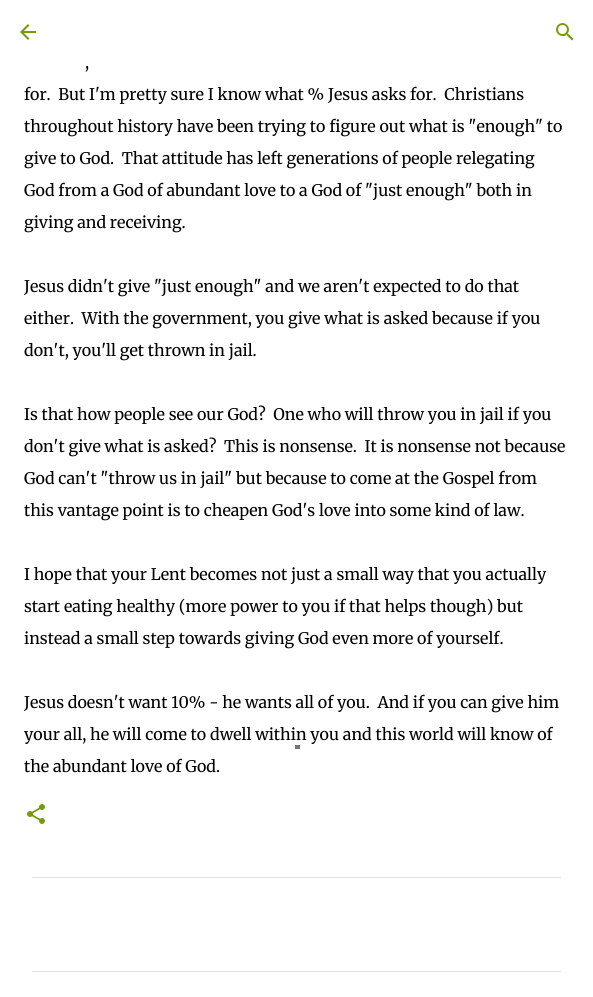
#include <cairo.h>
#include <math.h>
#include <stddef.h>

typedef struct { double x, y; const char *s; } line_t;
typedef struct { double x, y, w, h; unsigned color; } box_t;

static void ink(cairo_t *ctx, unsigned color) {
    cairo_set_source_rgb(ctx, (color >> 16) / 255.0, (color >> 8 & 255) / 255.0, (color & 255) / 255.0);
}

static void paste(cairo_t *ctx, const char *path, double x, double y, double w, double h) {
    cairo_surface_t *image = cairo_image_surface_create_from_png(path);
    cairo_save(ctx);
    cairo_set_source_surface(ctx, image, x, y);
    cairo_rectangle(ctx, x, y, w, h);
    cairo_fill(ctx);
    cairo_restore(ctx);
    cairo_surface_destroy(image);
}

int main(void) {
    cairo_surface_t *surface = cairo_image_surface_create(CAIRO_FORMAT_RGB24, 593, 997);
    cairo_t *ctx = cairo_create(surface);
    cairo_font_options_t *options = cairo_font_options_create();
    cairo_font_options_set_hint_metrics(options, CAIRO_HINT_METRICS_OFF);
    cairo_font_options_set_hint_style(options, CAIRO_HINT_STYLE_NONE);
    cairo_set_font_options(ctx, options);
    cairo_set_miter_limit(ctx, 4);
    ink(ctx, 0xFFFFFF);
    cairo_paint(ctx);
    paste(ctx, "media/1.png", 20, 24, 16, 16);
    paste(ctx, "media/2.png", 556, 23, 18, 18);
    cairo_select_font_face(ctx, "Merriweather Light", CAIRO_FONT_SLANT_NORMAL, CAIRO_FONT_WEIGHT_NORMAL);
    cairo_set_font_size(ctx, 16);
    ink(ctx, 0x000000);
    {
        static const line_t items[] = {
            {85, 68, ","},
            {24, 100, "for.  But I'm pretty sure I know what % Jesus asks for.  Christians"},
            {24, 132, "throughout history have been trying to figure out what is \"enough\" to"},
            {24, 164, "give to God.  That attitude has left generations of people relegating"},
            {24, 196, "God from a God of abundant love to a God of \"just enough\" both in"},
            {24, 228, "giving and receiving."},
            {24, 292, "Jesus didn't give \"just enough\" and we aren't expected to do that"},
            {24, 324, "either.  With the government, you give what is asked because if you"},
            {24, 356, "don't, you'll get thrown in jail."},
            {24, 420, "Is that how people see our God?  One who will throw you in jail if you"},
            {24, 452, "don't give what is asked?  This is nonsense.  It is nonsense not because"},
            {24, 484, "God can't \"throw us in jail\" but because to come at the Gospel from"},
            {24, 516, "this vantage point is to cheapen God's love into some kind of law."},
            {24, 580, "I hope that your Lent becomes not just a small way that you actually"},
            {24, 612, "start eating healthy (more power to you if that helps though) but"},
            {24, 644, "instead a small step towards giving God even more of yourself."},
            {24, 708, "Jesus doesn't want 10% - he wants all of you.  And if you can give him"},
            {24, 740, "your all, he will come to dwell within you and this world will know of"},
            {24, 772, "the abundant love of God."},
        };
        for (size_t i = 0; i < sizeof items / sizeof *items; i++) {
            cairo_move_to(ctx, items[i].x, items[i].y);
            cairo_show_text(ctx, items[i].s);
        }
    }
    paste(ctx, "media/3.png", 27, 804, 18, 20);
    {
        static const box_t items[] = {
            {32, 877, 529, 1, 0xE0E0E0},
            {32, 971, 529, 1, 0xE0E0E0},
            {295, 745, 5, 4, 0x757575},
        };
        for (size_t i = 0; i < sizeof items / sizeof *items; i++) {
            ink(ctx, items[i].color);
            cairo_rectangle(ctx, items[i].x, items[i].y, items[i].w, items[i].h);
            cairo_fill(ctx);
        }
    }
    cairo_surface_write_to_png(surface, "image.png");
    cairo_font_options_destroy(options);
    cairo_destroy(ctx);
    cairo_surface_destroy(surface);
    return 0;
}
